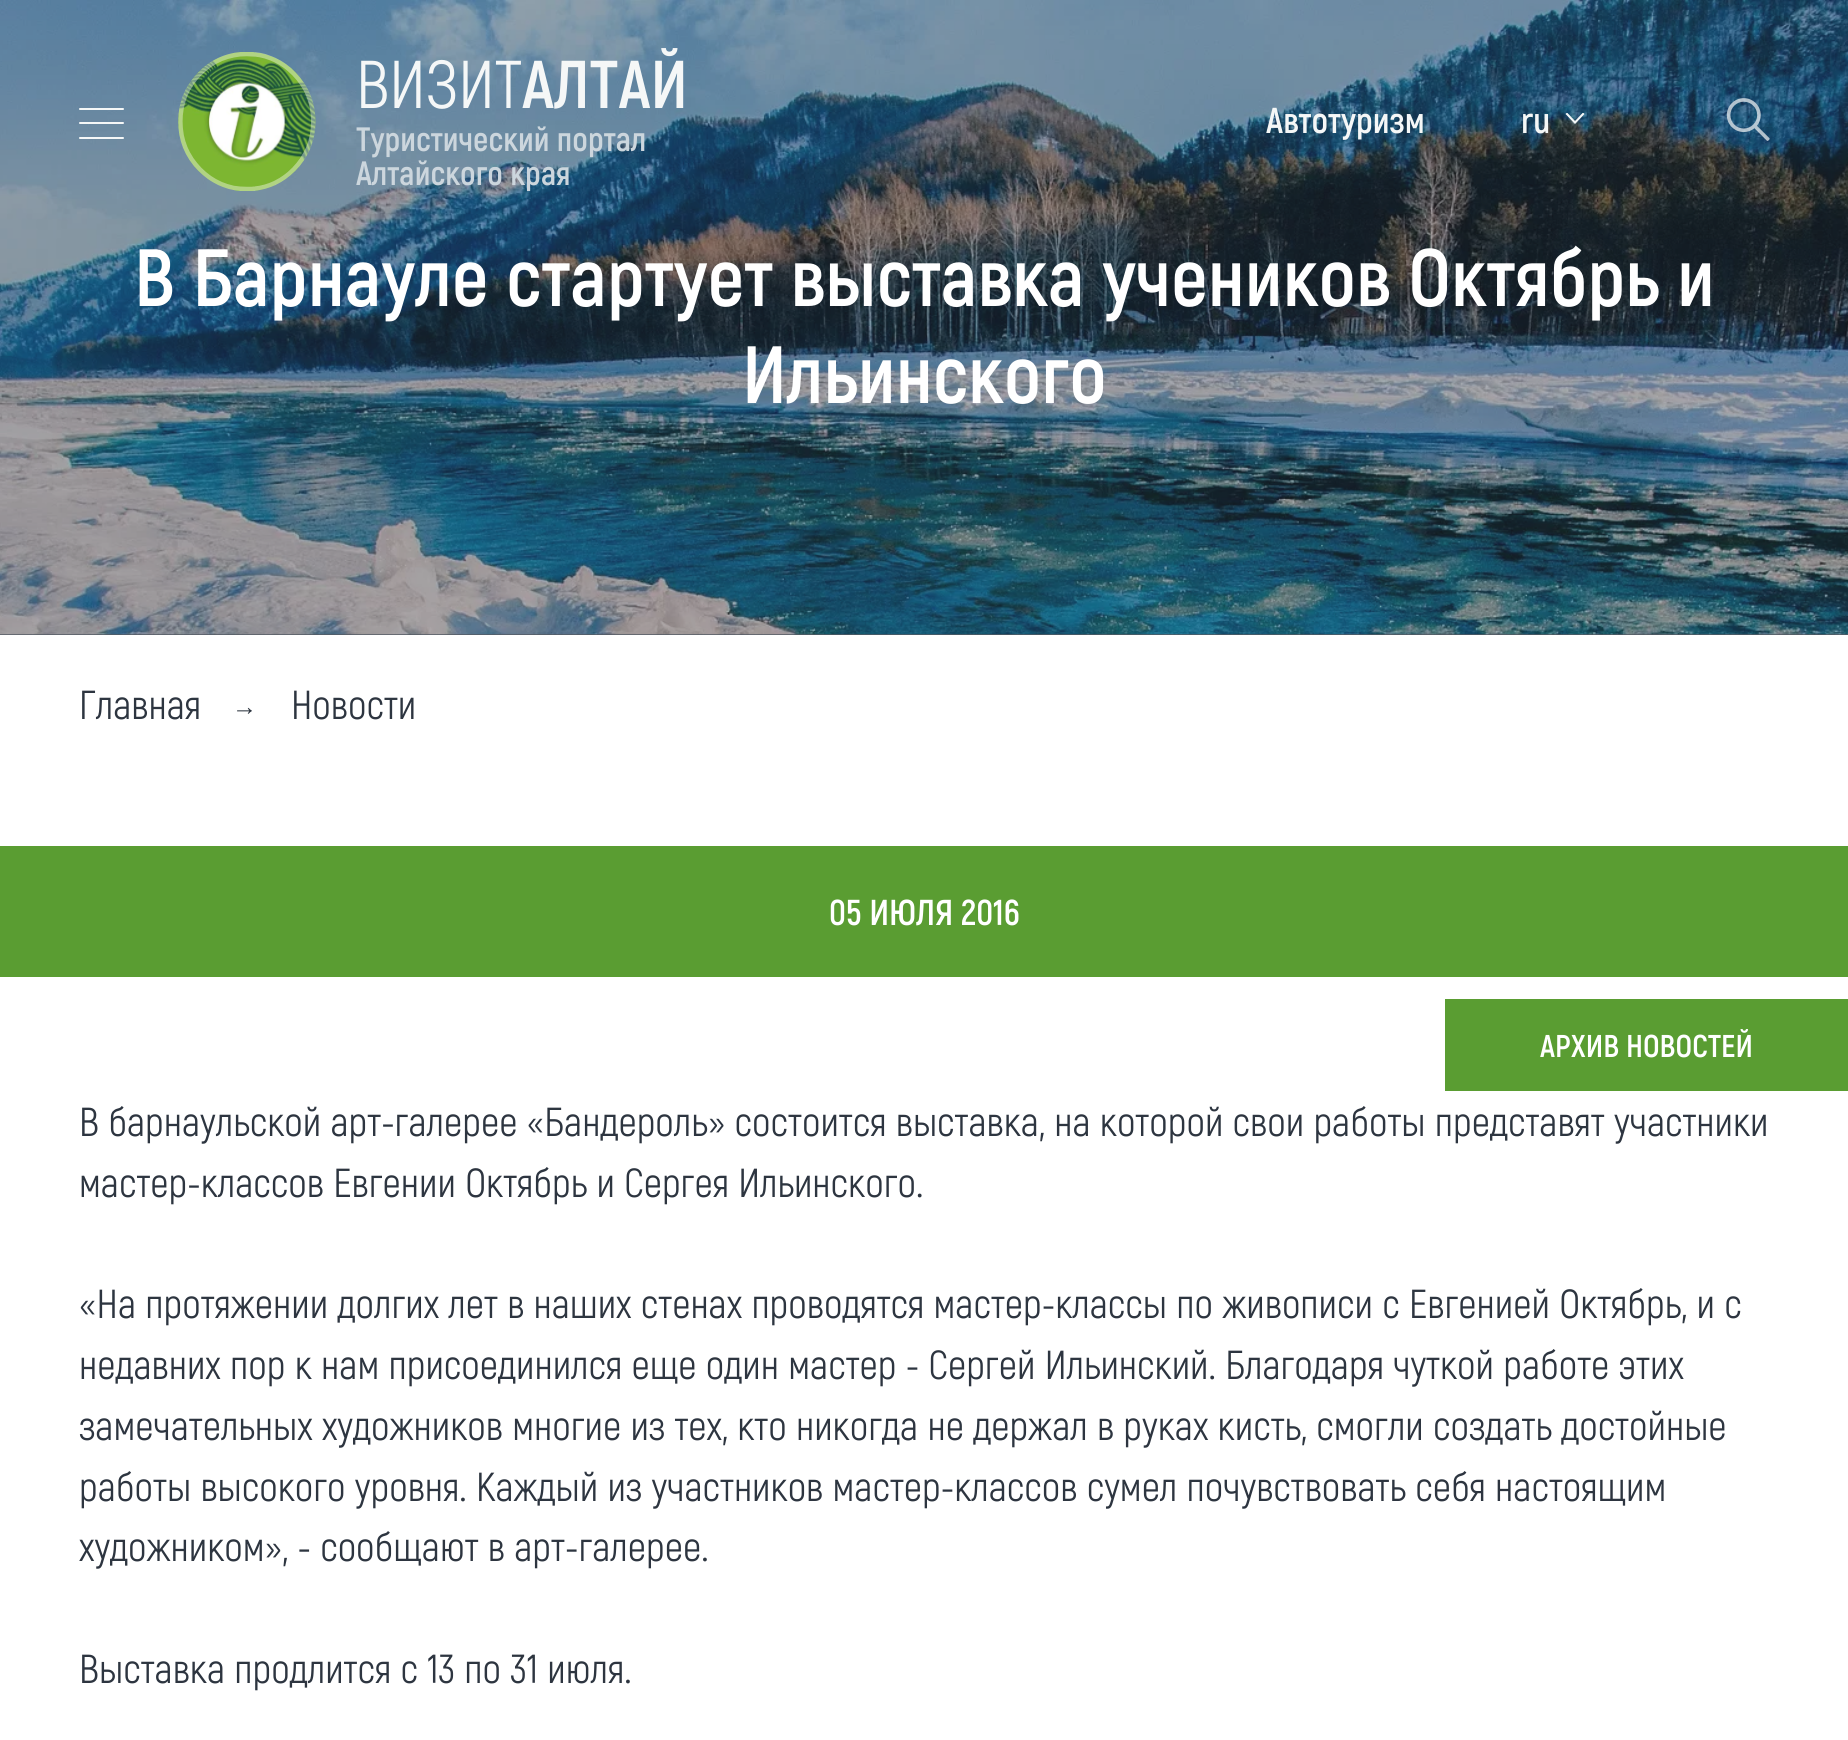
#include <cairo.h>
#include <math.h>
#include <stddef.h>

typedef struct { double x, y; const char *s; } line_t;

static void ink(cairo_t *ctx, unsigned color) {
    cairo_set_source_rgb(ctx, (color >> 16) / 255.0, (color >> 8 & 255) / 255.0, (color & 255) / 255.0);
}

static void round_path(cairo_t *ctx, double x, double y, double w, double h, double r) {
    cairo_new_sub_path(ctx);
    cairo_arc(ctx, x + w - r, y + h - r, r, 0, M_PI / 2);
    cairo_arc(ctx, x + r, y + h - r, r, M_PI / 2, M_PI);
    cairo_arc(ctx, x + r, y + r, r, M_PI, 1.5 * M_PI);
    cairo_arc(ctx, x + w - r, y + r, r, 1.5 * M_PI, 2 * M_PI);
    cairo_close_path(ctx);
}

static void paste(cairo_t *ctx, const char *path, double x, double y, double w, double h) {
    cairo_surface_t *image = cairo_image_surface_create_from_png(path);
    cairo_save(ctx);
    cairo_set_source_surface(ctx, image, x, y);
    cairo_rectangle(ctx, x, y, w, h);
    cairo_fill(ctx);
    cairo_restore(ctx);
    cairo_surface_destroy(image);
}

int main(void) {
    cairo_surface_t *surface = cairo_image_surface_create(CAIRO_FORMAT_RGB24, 1848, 1740);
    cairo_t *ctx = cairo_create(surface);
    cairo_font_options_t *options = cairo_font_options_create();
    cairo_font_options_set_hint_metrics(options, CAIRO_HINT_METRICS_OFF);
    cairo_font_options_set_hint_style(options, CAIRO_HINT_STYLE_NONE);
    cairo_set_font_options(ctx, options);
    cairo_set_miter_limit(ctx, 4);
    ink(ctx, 0xFFFFFF);
    cairo_paint(ctx);
    ink(ctx, 0x535A63);
    cairo_rectangle(ctx, 0, 634, 1848, 1);
    cairo_fill(ctx);
    paste(ctx, "media/3.png", 0, 0, 1848, 635);
    ink(ctx, 0xF5F7F7);
    round_path(ctx, 79, 108, 45, 2, 1);
    cairo_fill(ctx);
    round_path(ctx, 79, 122, 45, 2, 1);
    cairo_fill(ctx);
    round_path(ctx, 79, 137, 45, 2, 1);
    cairo_fill(ctx);
    paste(ctx, "media/1.png", 178, 52, 138, 139);
    cairo_select_font_face(ctx, "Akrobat", CAIRO_FONT_SLANT_NORMAL, CAIRO_FONT_WEIGHT_NORMAL);
    cairo_set_font_size(ctx, 67.5);
    cairo_move_to(ctx, 356, 108);
    cairo_show_text(ctx, "ВИЗИТ");
    cairo_select_font_face(ctx, "Akrobat", CAIRO_FONT_SLANT_NORMAL, CAIRO_FONT_WEIGHT_BOLD);
    cairo_move_to(ctx, 522, 108);
    cairo_show_text(ctx, "АЛТАЙ");
    cairo_set_font_size(ctx, 33.75);
    ink(ctx, 0xCCD6DD);
    cairo_move_to(ctx, 356, 151);
    cairo_show_text(ctx, "Туристический портал");
    cairo_move_to(ctx, 356, 185);
    cairo_show_text(ctx, "Алтайского края");
    cairo_set_font_size(ctx, 36);
    ink(ctx, 0xF5F7F7);
    cairo_move_to(ctx, 1266, 133);
    cairo_show_text(ctx, "Автотуризм");
    cairo_move_to(ctx, 1521, 133);
    cairo_show_text(ctx, "ru");
    cairo_save(ctx);
    cairo_rectangle(ctx, 1564, 113, 22, 13);
    cairo_clip(ctx);
    cairo_set_fill_rule(ctx, CAIRO_FILL_RULE_EVEN_ODD);
    cairo_new_path(ctx);
    cairo_move_to(ctx, 1583, 112.5);
    cairo_line_to(ctx, 1584.5, 114);
    cairo_line_to(ctx, 1575, 124);
    cairo_line_to(ctx, 1565.5, 114);
    cairo_line_to(ctx, 1567, 112.5);
    cairo_line_to(ctx, 1575, 121);
    cairo_close_path(ctx);
    cairo_fill(ctx);
    cairo_restore(ctx);
    paste(ctx, "media/2.png", 1726, 98, 44, 43);
    cairo_set_font_size(ctx, 81);
    ink(ctx, 0xFFFFFF);
    cairo_move_to(ctx, 134, 306);
    cairo_show_text(ctx, "В Барнауле стартует выставка учеников Октябрь и");
    cairo_move_to(ctx, 742, 403);
    cairo_show_text(ctx, "Ильинского");
    cairo_select_font_face(ctx, "Akrobat", CAIRO_FONT_SLANT_NORMAL, CAIRO_FONT_WEIGHT_NORMAL);
    cairo_set_font_size(ctx, 40.5);
    ink(ctx, 0x2D3540);
    cairo_move_to(ctx, 79, 719);
    cairo_show_text(ctx, "Главная");
    cairo_select_font_face(ctx, "Liberation Sans", CAIRO_FONT_SLANT_NORMAL, CAIRO_FONT_WEIGHT_NORMAL);
    cairo_set_font_size(ctx, 25);
    cairo_move_to(ctx, 232, 715);
    cairo_show_text(ctx, "→");
    cairo_select_font_face(ctx, "Akrobat", CAIRO_FONT_SLANT_NORMAL, CAIRO_FONT_WEIGHT_NORMAL);
    cairo_set_font_size(ctx, 40.5);
    cairo_move_to(ctx, 291, 719);
    cairo_show_text(ctx, "Новости");
    ink(ctx, 0x5A9D32);
    cairo_rectangle(ctx, 0, 846, 1848, 131);
    cairo_fill(ctx);
    cairo_select_font_face(ctx, "Akrobat", CAIRO_FONT_SLANT_NORMAL, CAIRO_FONT_WEIGHT_BOLD);
    cairo_set_font_size(ctx, 36);
    ink(ctx, 0xFFFFFF);
    cairo_move_to(ctx, 829, 925);
    cairo_show_text(ctx, "05 ИЮЛЯ 2016");
    ink(ctx, 0x5A9D32);
    cairo_rectangle(ctx, 1445, 999, 403, 92);
    cairo_fill(ctx);
    cairo_set_font_size(ctx, 31.5);
    ink(ctx, 0xFFFFFF);
    cairo_move_to(ctx, 1540, 1057);
    cairo_show_text(ctx, "АРХИВ НОВОСТЕЙ");
    cairo_select_font_face(ctx, "Akrobat", CAIRO_FONT_SLANT_NORMAL, CAIRO_FONT_WEIGHT_NORMAL);
    cairo_set_font_size(ctx, 40.5);
    ink(ctx, 0x2D3540);
    {
        static const line_t items[] = {
            {79, 1136, "В барнаульской арт-галерее «Бандероль» состоится выставка, на которой свои работы представят участники"},
            {79, 1197, "мастер-классов Евгении Октябрь и Сергея Ильинского."},
            {79, 1318, "«На протяжении долгих лет в наших стенах проводятся мастер-классы по живописи с Евгенией Октябрь, и с"},
            {79, 1379, "недавних пор к нам присоединился еще один мастер - Сергей Ильинский. Благодаря чуткой работе этих"},
            {79, 1440, "замечательных художников многие из тех, кто никогда не держал в руках кисть, смогли создать достойные"},
            {79, 1501, "работы высокого уровня. Каждый из участников мастер-классов сумел почувствовать себя настоящим"},
            {79, 1561, "художником», - сообщают в арт-галерее."},
            {79, 1683, "Выставка продлится с 13 по 31 июля."},
        };
        for (size_t i = 0; i < sizeof items / sizeof *items; i++) {
            cairo_move_to(ctx, items[i].x, items[i].y);
            cairo_show_text(ctx, items[i].s);
        }
    }
    cairo_surface_write_to_png(surface, "image.png");
    cairo_font_options_destroy(options);
    cairo_destroy(ctx);
    cairo_surface_destroy(surface);
    return 0;
}
